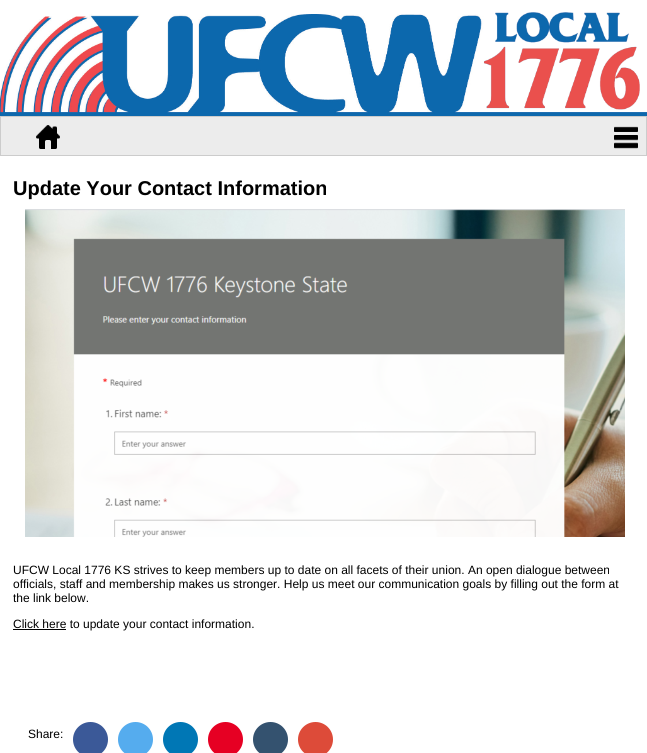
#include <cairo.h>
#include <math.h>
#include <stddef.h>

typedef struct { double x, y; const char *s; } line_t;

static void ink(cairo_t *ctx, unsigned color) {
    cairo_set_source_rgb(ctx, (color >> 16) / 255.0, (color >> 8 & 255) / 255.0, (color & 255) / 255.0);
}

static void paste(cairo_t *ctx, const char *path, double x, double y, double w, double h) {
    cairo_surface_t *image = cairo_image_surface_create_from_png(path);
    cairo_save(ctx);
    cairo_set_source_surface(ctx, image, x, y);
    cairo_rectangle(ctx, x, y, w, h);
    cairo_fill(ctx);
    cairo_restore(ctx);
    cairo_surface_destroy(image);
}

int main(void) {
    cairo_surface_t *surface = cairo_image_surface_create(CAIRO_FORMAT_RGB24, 647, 753);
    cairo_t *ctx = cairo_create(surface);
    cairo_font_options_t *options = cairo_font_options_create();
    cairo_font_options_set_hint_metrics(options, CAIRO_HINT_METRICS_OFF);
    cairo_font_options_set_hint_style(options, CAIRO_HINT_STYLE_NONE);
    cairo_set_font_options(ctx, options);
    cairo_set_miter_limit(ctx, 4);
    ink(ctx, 0xFFFFFF);
    cairo_paint(ctx);
    paste(ctx, "media/1.png", 0, 0, 647, 116);
    ink(ctx, 0xECECEC);
    cairo_rectangle(ctx, 0.5, 116.5, 646, 39);
    cairo_fill_preserve(ctx);
    ink(ctx, 0xCCCCCC);
    cairo_set_line_width(ctx, 1);
    cairo_stroke(ctx);
    paste(ctx, "media/2.png", 36, 125, 24, 24);
    paste(ctx, "media/3.png", 614, 126, 24, 23);
    cairo_select_font_face(ctx, "Liberation Sans", CAIRO_FONT_SLANT_NORMAL, CAIRO_FONT_WEIGHT_BOLD);
    cairo_set_font_size(ctx, 20);
    ink(ctx, 0x000000);
    cairo_move_to(ctx, 13, 195);
    cairo_show_text(ctx, "Update Your Contact Information");
    paste(ctx, "media/4.png", 25, 209, 600, 328);
    cairo_select_font_face(ctx, "Liberation Sans", CAIRO_FONT_SLANT_NORMAL, CAIRO_FONT_WEIGHT_NORMAL);
    cairo_set_font_size(ctx, 12);
    {
        static const line_t items[] = {
            {13, 574, "UFCW Local 1776 KS strives to keep members up to date on all facets of their union. An open dialogue between"},
            {13, 588, "officials, staff and membership makes us stronger. Help us meet our communication goals by filling out the form at"},
            {13, 602, "the link below."},
        };
        for (size_t i = 0; i < sizeof items / sizeof *items; i++) {
            cairo_move_to(ctx, items[i].x, items[i].y);
            cairo_show_text(ctx, items[i].s);
        }
    }
    cairo_rectangle(ctx, 13, 629, 53, 1);
    cairo_fill(ctx);
    cairo_move_to(ctx, 13, 628);
    cairo_show_text(ctx, "Click here to update your contact information.");
    cairo_move_to(ctx, 28, 738);
    cairo_show_text(ctx, "Share:");
    ink(ctx, 0x3B5998);
    cairo_new_path(ctx);
    cairo_arc(ctx, 90.5, 739.5, 17.5, 0, 2 * M_PI);
    cairo_fill(ctx);
    ink(ctx, 0x55ACEE);
    cairo_arc(ctx, 135.5, 739.5, 17.5, 0, 2 * M_PI);
    cairo_fill(ctx);
    ink(ctx, 0x0077B5);
    cairo_arc(ctx, 180.5, 739.5, 17.5, 0, 2 * M_PI);
    cairo_fill(ctx);
    ink(ctx, 0xE60023);
    cairo_arc(ctx, 225.5, 739.5, 17.5, 0, 2 * M_PI);
    cairo_fill(ctx);
    ink(ctx, 0x34526F);
    cairo_arc(ctx, 270.5, 739.5, 17.5, 0, 2 * M_PI);
    cairo_fill(ctx);
    ink(ctx, 0xDD4B39);
    cairo_arc(ctx, 315.5, 739.5, 17.5, 0, 2 * M_PI);
    cairo_fill(ctx);
    cairo_surface_write_to_png(surface, "image.png");
    cairo_font_options_destroy(options);
    cairo_destroy(ctx);
    cairo_surface_destroy(surface);
    return 0;
}
